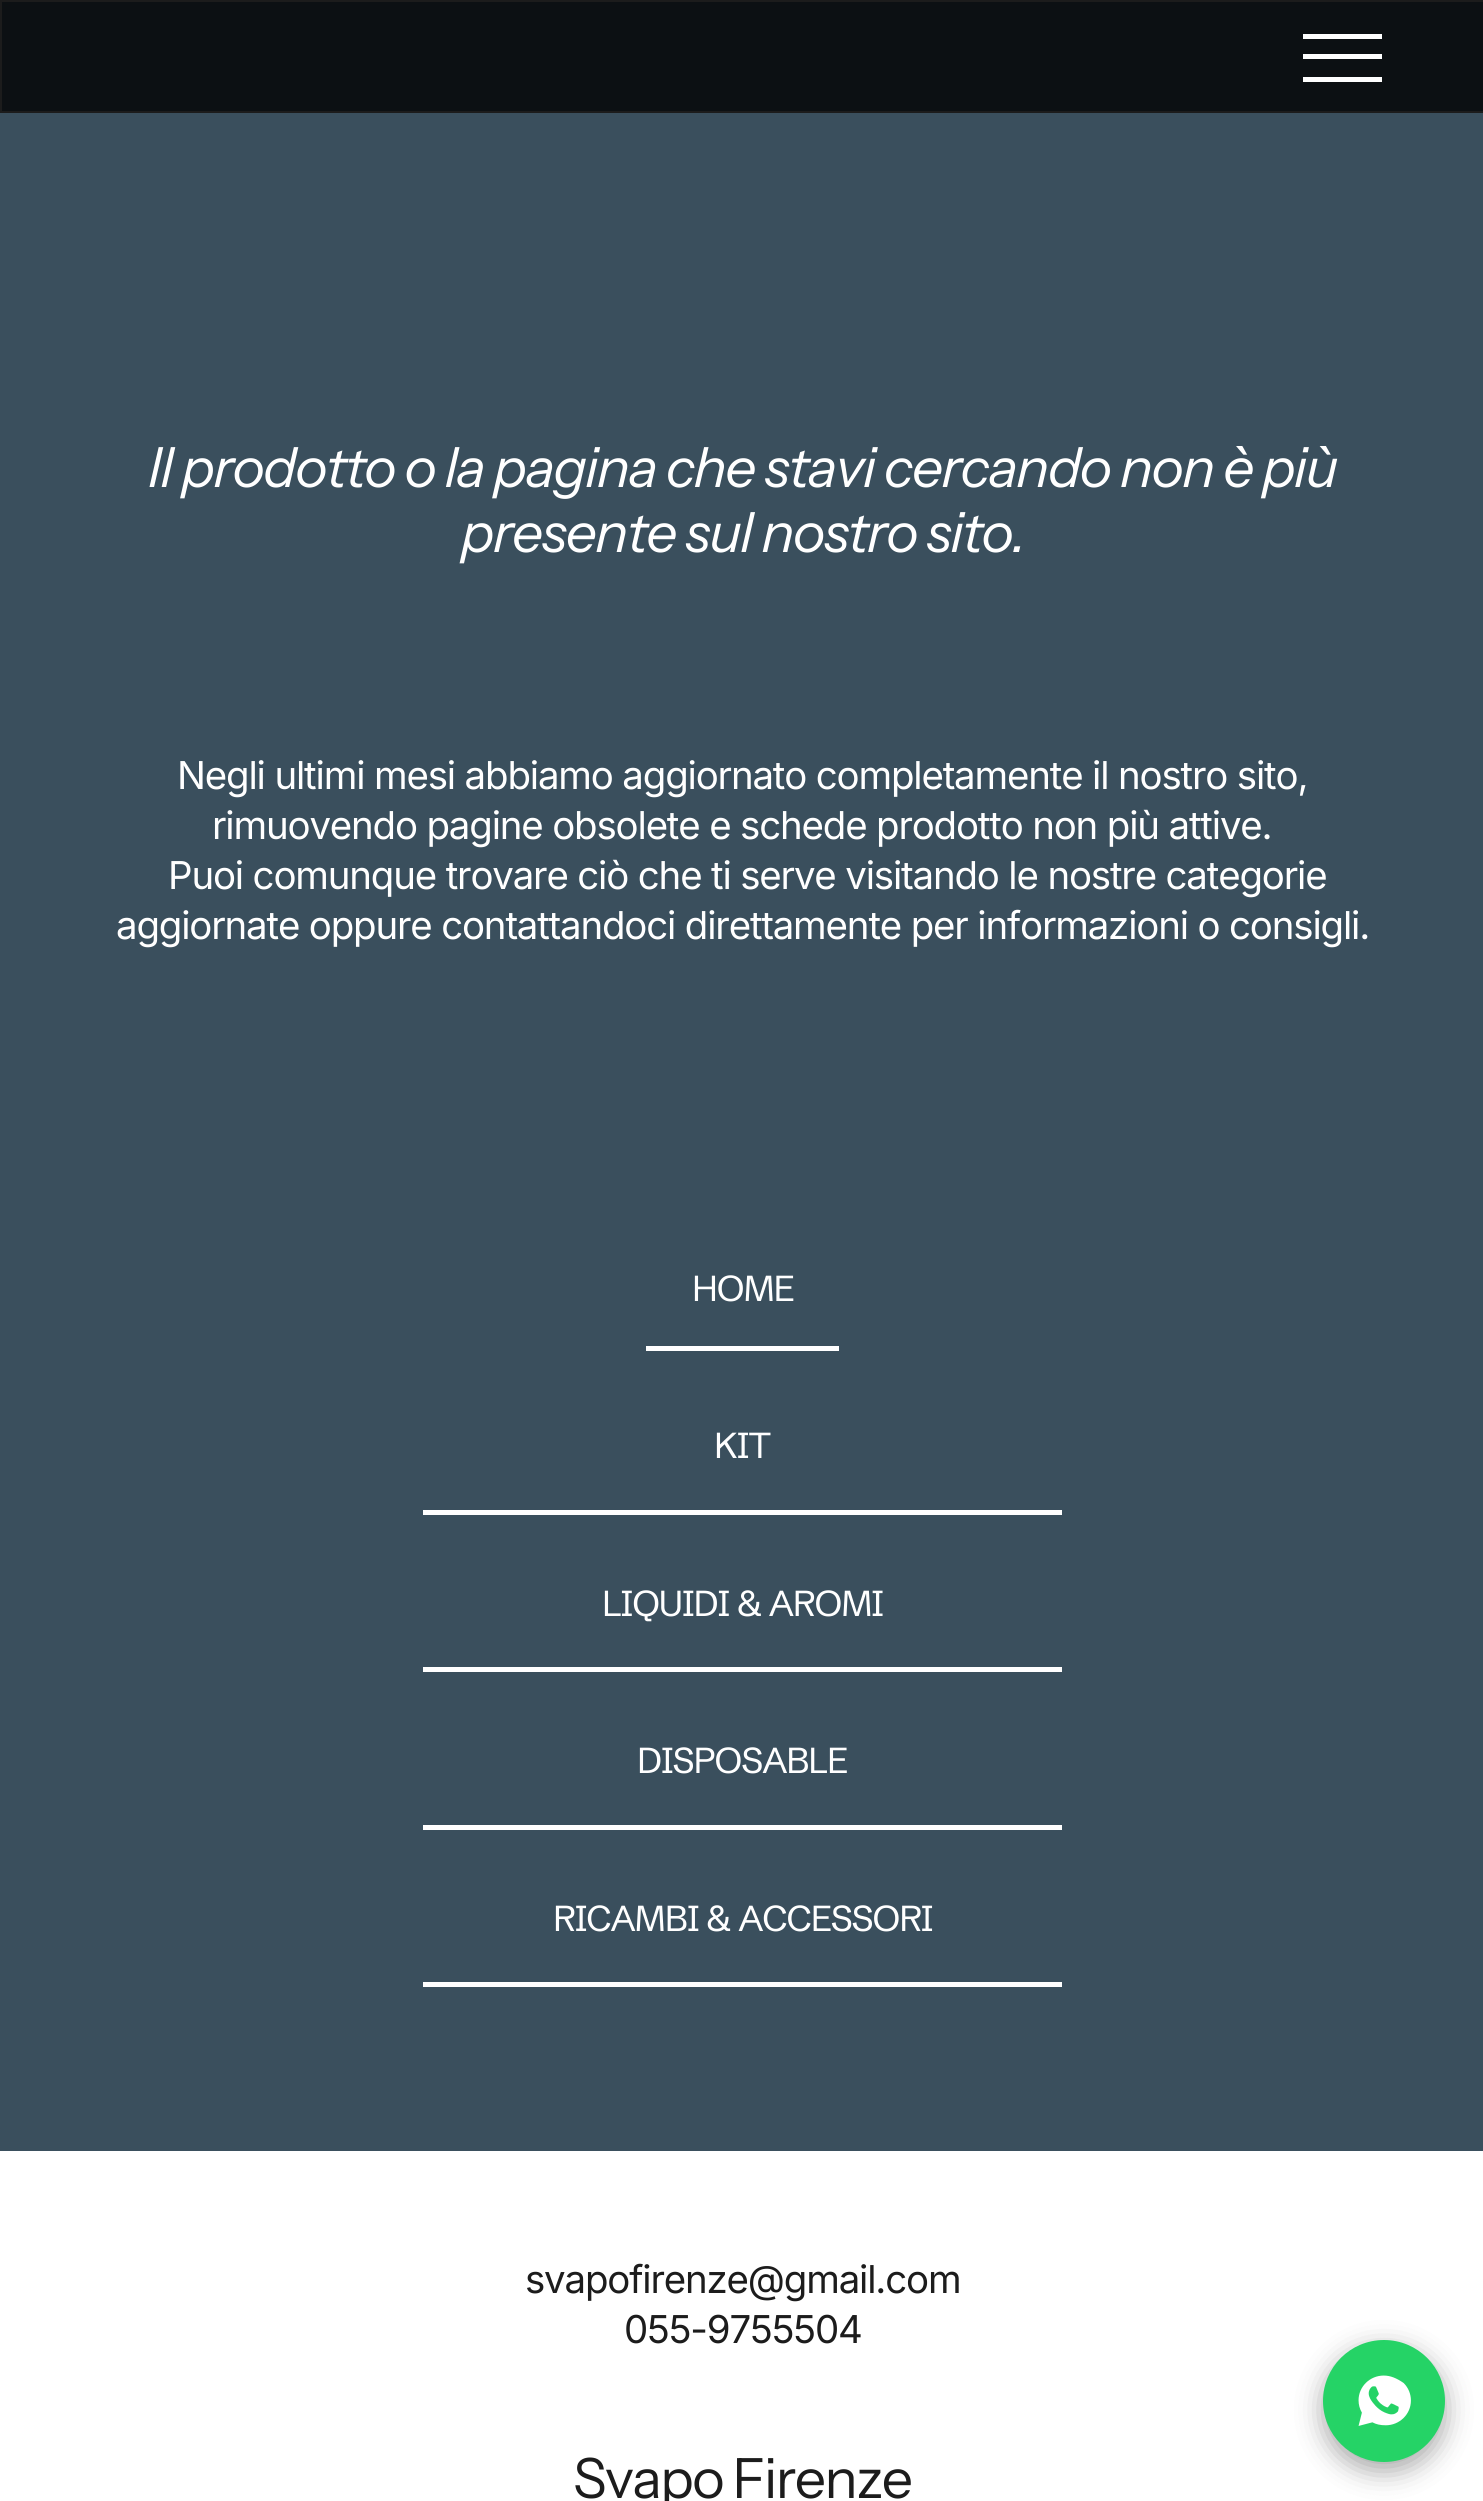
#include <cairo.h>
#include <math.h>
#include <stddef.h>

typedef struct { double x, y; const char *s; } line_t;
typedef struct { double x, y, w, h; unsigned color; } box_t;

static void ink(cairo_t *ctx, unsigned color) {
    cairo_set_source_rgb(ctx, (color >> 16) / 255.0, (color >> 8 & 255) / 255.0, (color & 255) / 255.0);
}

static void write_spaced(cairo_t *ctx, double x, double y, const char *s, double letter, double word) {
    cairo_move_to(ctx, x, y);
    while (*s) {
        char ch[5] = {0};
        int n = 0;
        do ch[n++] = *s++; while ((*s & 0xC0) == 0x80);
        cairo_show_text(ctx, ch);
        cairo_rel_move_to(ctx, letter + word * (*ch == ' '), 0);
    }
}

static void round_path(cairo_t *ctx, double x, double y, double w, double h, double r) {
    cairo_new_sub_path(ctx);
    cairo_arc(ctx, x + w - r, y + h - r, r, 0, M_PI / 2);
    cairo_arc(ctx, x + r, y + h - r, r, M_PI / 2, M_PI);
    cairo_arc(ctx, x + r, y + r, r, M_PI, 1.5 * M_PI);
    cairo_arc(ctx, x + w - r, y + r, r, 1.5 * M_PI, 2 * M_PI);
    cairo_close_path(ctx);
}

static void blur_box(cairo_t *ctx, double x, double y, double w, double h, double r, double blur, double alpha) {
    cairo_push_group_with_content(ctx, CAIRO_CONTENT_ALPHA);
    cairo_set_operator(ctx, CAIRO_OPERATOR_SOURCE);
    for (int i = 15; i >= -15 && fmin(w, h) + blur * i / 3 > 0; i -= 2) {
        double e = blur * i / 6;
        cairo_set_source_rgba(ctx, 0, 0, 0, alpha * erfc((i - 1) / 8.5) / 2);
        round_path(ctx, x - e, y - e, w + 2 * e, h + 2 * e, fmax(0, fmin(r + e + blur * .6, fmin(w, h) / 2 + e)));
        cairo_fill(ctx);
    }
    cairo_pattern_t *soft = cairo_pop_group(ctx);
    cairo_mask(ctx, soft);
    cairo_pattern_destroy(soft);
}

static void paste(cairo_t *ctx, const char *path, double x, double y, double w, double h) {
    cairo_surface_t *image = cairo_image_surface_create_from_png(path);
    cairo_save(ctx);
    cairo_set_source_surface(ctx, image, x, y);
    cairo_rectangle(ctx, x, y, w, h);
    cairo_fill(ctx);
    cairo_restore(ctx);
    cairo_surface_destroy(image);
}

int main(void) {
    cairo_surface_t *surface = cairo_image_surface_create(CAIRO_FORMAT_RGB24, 1483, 2501);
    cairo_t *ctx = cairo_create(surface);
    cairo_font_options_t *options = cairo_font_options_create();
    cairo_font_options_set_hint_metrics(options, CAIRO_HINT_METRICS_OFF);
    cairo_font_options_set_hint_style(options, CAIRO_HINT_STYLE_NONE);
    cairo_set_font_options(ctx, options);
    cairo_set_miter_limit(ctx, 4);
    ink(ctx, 0xFFFFFF);
    cairo_paint(ctx);
    ink(ctx, 0x0C1013);
    cairo_rectangle(ctx, 1, 1, 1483, 111);
    cairo_fill_preserve(ctx);
    ink(ctx, 0x1C1C1C);
    cairo_stroke(ctx);
    {
        static const box_t items[] = {
            {1303, 34, 79, 5, 0xFFFFFF},
            {1303, 54, 79, 5, 0xFFFFFF},
            {1303, 77, 79, 5, 0xFFFFFF},
            {0, 113, 1483, 2038, 0x3A4F5D},
        };
        for (size_t i = 0; i < sizeof items / sizeof *items; i++) {
            ink(ctx, items[i].color);
            cairo_rectangle(ctx, items[i].x, items[i].y, items[i].w, items[i].h);
            cairo_fill(ctx);
        }
    }
    cairo_select_font_face(ctx, "Instrument Sans", CAIRO_FONT_SLANT_ITALIC, CAIRO_FONT_WEIGHT_NORMAL);
    cairo_set_font_size(ctx, 55.4);
    ink(ctx, 0xFFFFFF);
    write_spaced(ctx, 148, 487, "Il prodotto o la pagina che stavi cercando non è più", -1.65, 0);
    write_spaced(ctx, 461, 552, "presente sul nostro sito.", -1.65, 0);
    cairo_select_font_face(ctx, "Inter", CAIRO_FONT_SLANT_NORMAL, CAIRO_FONT_WEIGHT_NORMAL);
    cairo_set_font_size(ctx, 38.4);
    {
        static const line_t items[] = {
            {177, 789, "Negli ultimi mesi abbiamo aggiornato completamente il nostro sito,"},
            {212, 839, "rimuovendo pagine obsolete e schede prodotto non più attive."},
            {168, 889, "Puoi comunque trovare ciò che ti serve visitando le nostre categorie"},
            {116, 939, "aggiornate oppure contattandoci direttamente per informazioni o consigli."},
        };
        for (size_t i = 0; i < sizeof items / sizeof *items; i++) {
            write_spaced(ctx, items[i].x, items[i].y, items[i].s, -1.15, 0);
        }
    }
    cairo_rectangle(ctx, 646, 1346, 193, 5);
    cairo_fill(ctx);
    cairo_select_font_face(ctx, "Schibsted Grotesk", CAIRO_FONT_SLANT_NORMAL, CAIRO_FONT_WEIGHT_NORMAL);
    cairo_set_font_size(ctx, 36);
    write_spaced(ctx, 692, 1301, "HOME", -1.1, 0);
    cairo_rectangle(ctx, 423, 1510, 639, 5);
    cairo_fill(ctx);
    write_spaced(ctx, 714, 1458, "KIT", -1.1, 0);
    cairo_rectangle(ctx, 423, 1667, 639, 5);
    cairo_fill(ctx);
    write_spaced(ctx, 602, 1616, "LIQUIDI & AROMI", -1.1, 0);
    cairo_rectangle(ctx, 423, 1825, 639, 5);
    cairo_fill(ctx);
    write_spaced(ctx, 637, 1773, "DISPOSABLE", -1.1, 0);
    cairo_rectangle(ctx, 423, 1982, 639, 5);
    cairo_fill(ctx);
    write_spaced(ctx, 553, 1931, "RICAMBI & ACCESSORI", -1.1, 0);
    cairo_select_font_face(ctx, "Inter", CAIRO_FONT_SLANT_NORMAL, CAIRO_FONT_WEIGHT_NORMAL);
    cairo_set_font_size(ctx, 38.4);
    ink(ctx, 0x1C1C1C);
    write_spaced(ctx, 525, 2293, "svapofirenze@gmail.com", -1.15, 0);
    write_spaced(ctx, 624, 2343, "055-9755504", -1.15, 0);
    cairo_select_font_face(ctx, "Instrument Sans", CAIRO_FONT_SLANT_NORMAL, CAIRO_FONT_WEIGHT_NORMAL);
    cairo_set_font_size(ctx, 55.4);
    write_spaced(ctx, 573, 2498, "Svapo Firenze", -1.65, 0);
    ink(ctx, 0x000000);
    blur_box(ctx, 1323, 2349, 122, 122, 61, 13.5, 0.35);
    ink(ctx, 0x25D366);
    cairo_arc(ctx, 1384, 2401, 61, 0, 2 * M_PI);
    cairo_fill(ctx);
    paste(ctx, "media/1.png", 1358, 2375, 53, 51);
    cairo_surface_write_to_png(surface, "image.png");
    cairo_font_options_destroy(options);
    cairo_destroy(ctx);
    cairo_surface_destroy(surface);
    return 0;
}
